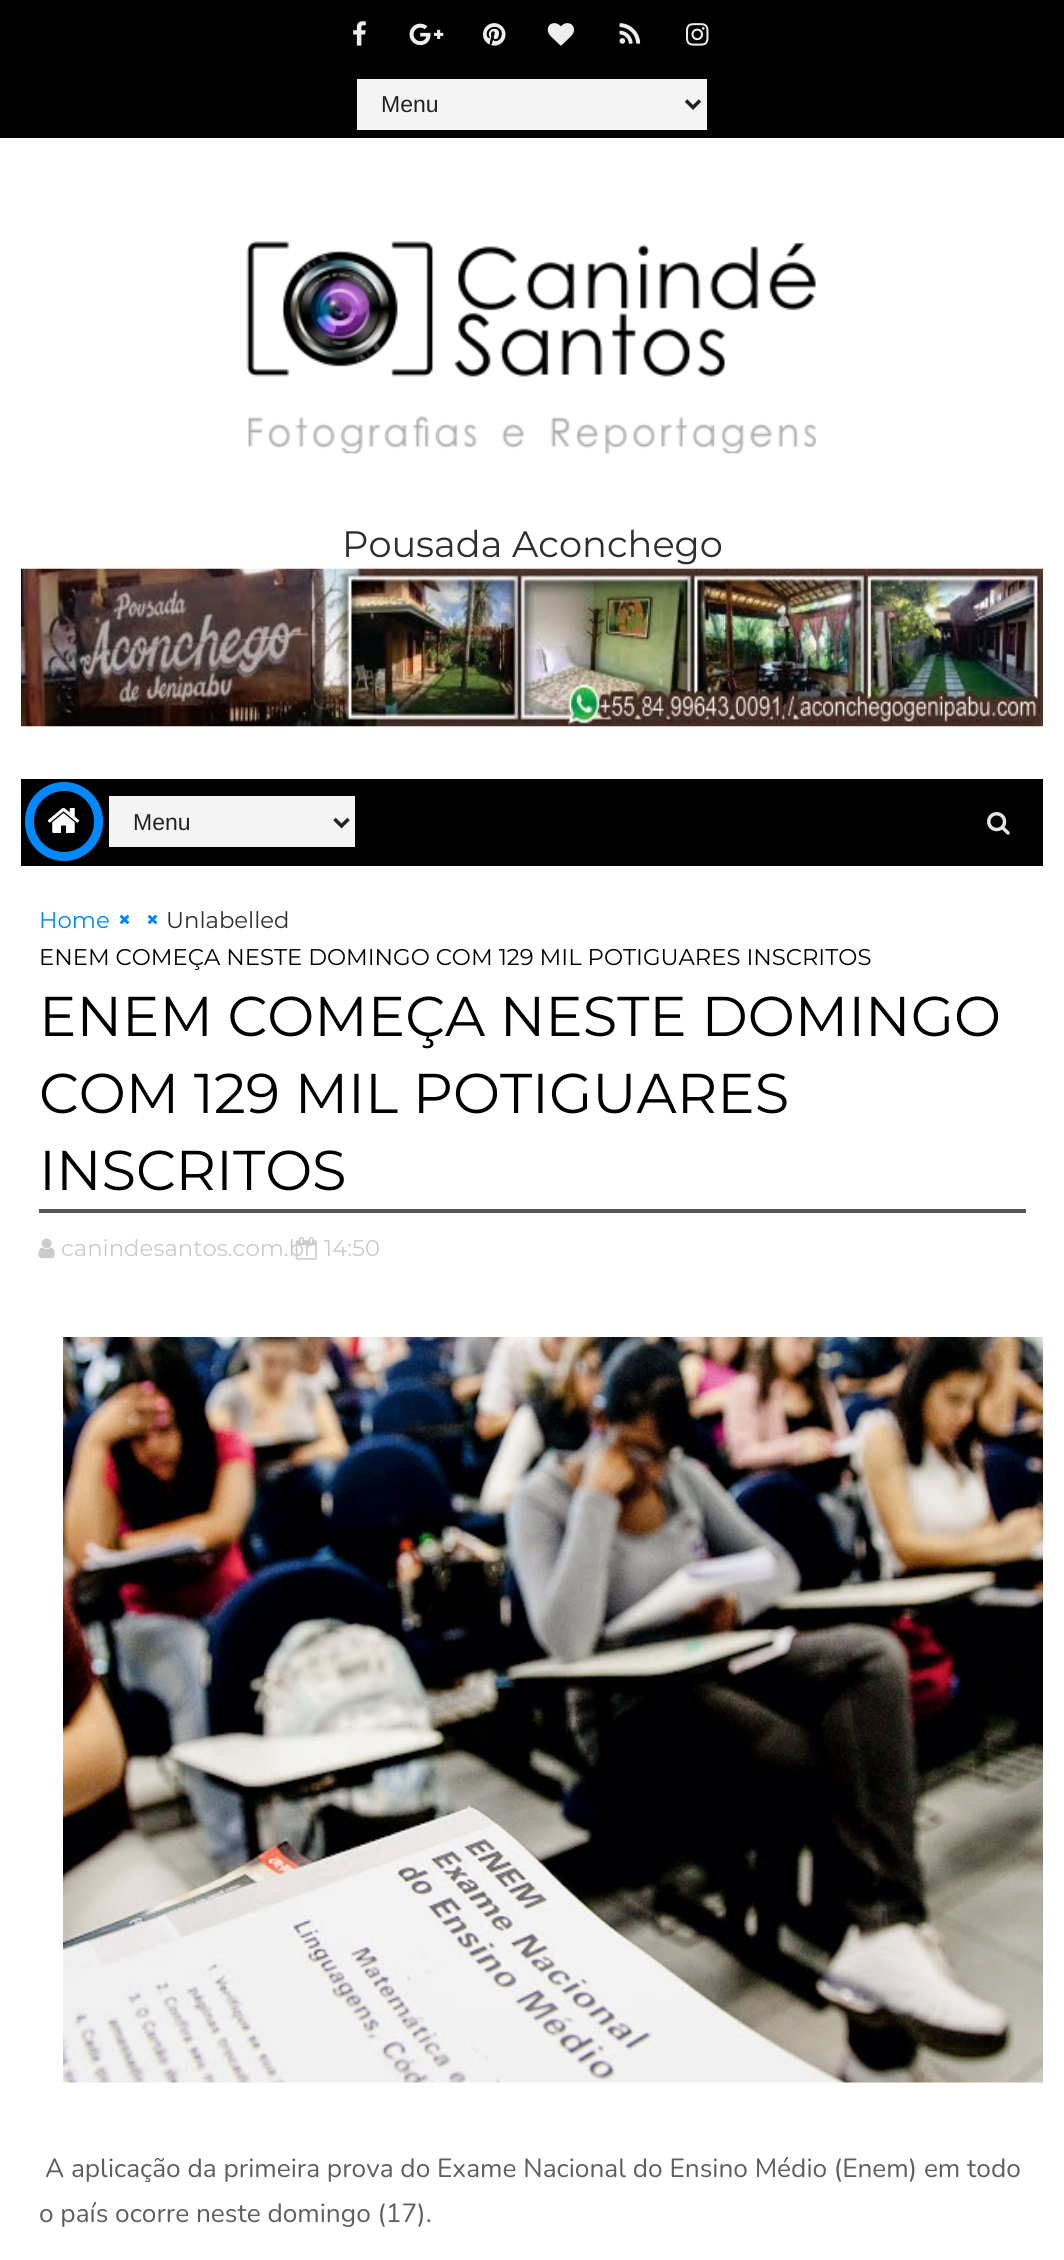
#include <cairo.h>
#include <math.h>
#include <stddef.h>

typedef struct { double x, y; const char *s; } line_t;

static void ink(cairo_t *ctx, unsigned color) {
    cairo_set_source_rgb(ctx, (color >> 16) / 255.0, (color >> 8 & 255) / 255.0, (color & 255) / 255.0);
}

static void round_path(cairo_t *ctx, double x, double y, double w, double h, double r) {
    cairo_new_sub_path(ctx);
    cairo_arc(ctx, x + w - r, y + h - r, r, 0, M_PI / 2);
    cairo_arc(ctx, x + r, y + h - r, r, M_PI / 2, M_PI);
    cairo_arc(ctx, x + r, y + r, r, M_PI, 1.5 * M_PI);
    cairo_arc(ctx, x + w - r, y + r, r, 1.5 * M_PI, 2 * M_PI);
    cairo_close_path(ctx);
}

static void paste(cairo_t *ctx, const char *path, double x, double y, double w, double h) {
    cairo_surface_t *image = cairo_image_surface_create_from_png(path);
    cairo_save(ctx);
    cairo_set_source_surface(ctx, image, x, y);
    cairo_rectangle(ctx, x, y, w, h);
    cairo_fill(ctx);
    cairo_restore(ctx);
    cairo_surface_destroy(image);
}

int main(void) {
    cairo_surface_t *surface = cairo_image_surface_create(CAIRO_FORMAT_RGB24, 1064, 2260);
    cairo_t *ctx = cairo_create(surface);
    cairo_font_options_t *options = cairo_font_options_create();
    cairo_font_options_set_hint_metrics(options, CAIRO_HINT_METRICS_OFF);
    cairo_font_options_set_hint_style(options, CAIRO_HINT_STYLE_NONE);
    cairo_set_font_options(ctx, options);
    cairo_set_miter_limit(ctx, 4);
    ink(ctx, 0xFFFFFF);
    cairo_paint(ctx);
    ink(ctx, 0x000000);
    cairo_rectangle(ctx, 0, 0, 1064, 138);
    cairo_fill(ctx);
    paste(ctx, "media/1.png", 353, 21, 13, 25);
    paste(ctx, "media/2.png", 409, 23, 35, 23);
    paste(ctx, "media/3.png", 483, 23, 23, 23);
    paste(ctx, "media/4.png", 547, 23, 27, 23);
    paste(ctx, "media/5.png", 619, 23, 22, 21);
    paste(ctx, "media/6.png", 686, 23, 23, 23);
    ink(ctx, 0xF4F4F4);
    cairo_rectangle(ctx, 357, 79, 350, 51);
    cairo_fill(ctx);
    cairo_new_path(ctx);
    cairo_move_to(ctx, 686, 100.5);
    cairo_line_to(ctx, 693, 107.5);
    cairo_line_to(ctx, 700, 100.5);
    ink(ctx, 0x222222);
    cairo_set_line_width(ctx, 3.5);
    cairo_stroke(ctx);
    cairo_select_font_face(ctx, "Liberation Sans", CAIRO_FONT_SLANT_NORMAL, CAIRO_FONT_WEIGHT_NORMAL);
    cairo_set_font_size(ctx, 23);
    cairo_move_to(ctx, 381, 112);
    cairo_show_text(ctx, "Menu");
    paste(ctx, "media/7.png", 246, 241, 571, 213);
    cairo_select_font_face(ctx, "Montserrat", CAIRO_FONT_SLANT_NORMAL, CAIRO_FONT_WEIGHT_NORMAL);
    cairo_set_font_size(ctx, 36.75);
    ink(ctx, 0x2E2E2E);
    cairo_move_to(ctx, 342, 557);
    cairo_show_text(ctx, "Pousada Aconchego");
    paste(ctx, "media/8.png", 21, 568, 1022, 159);
    ink(ctx, 0x000000);
    cairo_rectangle(ctx, 21, 779, 1022, 87);
    cairo_fill(ctx);
    round_path(ctx, 29.5, 786.5, 69, 70, 34.5);
    ink(ctx, 0x0088FF);
    cairo_set_line_width(ctx, 9);
    cairo_stroke(ctx);
    paste(ctx, "media/9.png", 47, 807, 33, 26);
    ink(ctx, 0xF4F4F4);
    cairo_rectangle(ctx, 109, 796, 246, 51);
    cairo_fill(ctx);
    cairo_new_path(ctx);
    cairo_move_to(ctx, 334.5, 819);
    cairo_line_to(ctx, 341.5, 826);
    cairo_line_to(ctx, 348.5, 819);
    ink(ctx, 0x222222);
    cairo_set_line_width(ctx, 3.5);
    cairo_stroke(ctx);
    cairo_select_font_face(ctx, "Liberation Sans", CAIRO_FONT_SLANT_NORMAL, CAIRO_FONT_WEIGHT_NORMAL);
    cairo_set_font_size(ctx, 23);
    cairo_move_to(ctx, 133, 830);
    cairo_show_text(ctx, "Menu");
    paste(ctx, "media/10.png", 987, 812, 23, 23);
    cairo_select_font_face(ctx, "Montserrat", CAIRO_FONT_SLANT_NORMAL, CAIRO_FONT_WEIGHT_NORMAL);
    cairo_set_font_size(ctx, 22.75);
    ink(ctx, 0x0088FF);
    cairo_move_to(ctx, 39, 928);
    cairo_show_text(ctx, "Home");
    paste(ctx, "media/11.png", 119, 914, 11, 11);
    paste(ctx, "media/11.png", 147, 914, 11, 11);
    ink(ctx, 0x2E2E2E);
    cairo_move_to(ctx, 166, 928);
    cairo_show_text(ctx, "Unlabelled");
    ink(ctx, 0x000000);
    cairo_move_to(ctx, 39, 965);
    cairo_show_text(ctx, "ENEM COMEÇA NESTE DOMINGO COM 129 MIL POTIGUARES INSCRITOS");
    ink(ctx, 0x555555);
    cairo_rectangle(ctx, 39, 1209, 987, 4);
    cairo_fill(ctx);
    cairo_set_font_size(ctx, 56);
    ink(ctx, 0x000000);
    {
        static const line_t items[] = {
            {39, 1036, "ENEM COMEÇA NESTE DOMINGO"},
            {39, 1113, "COM 129 MIL POTIGUARES"},
            {39, 1190, "INSCRITOS"},
        };
        for (size_t i = 0; i < sizeof items / sizeof *items; i++) {
            cairo_move_to(ctx, items[i].x, items[i].y);
            cairo_show_text(ctx, items[i].s);
        }
    }
    paste(ctx, "media/12.png", 38, 1238, 17, 21);
    cairo_set_font_size(ctx, 22.75);
    ink(ctx, 0xCBCBCB);
    cairo_move_to(ctx, 61, 1256);
    cairo_show_text(ctx, "canindesantos.com.br");
    paste(ctx, "media/13.png", 295, 1237, 22, 23);
    cairo_move_to(ctx, 324, 1256);
    cairo_show_text(ctx, "14:50");
    paste(ctx, "media/14.png", 63, 1337, 980, 746);
    cairo_select_font_face(ctx, "Nunito", CAIRO_FONT_SLANT_NORMAL, CAIRO_FONT_WEIGHT_NORMAL);
    cairo_set_font_size(ctx, 26.25);
    ink(ctx, 0x5E5E5E);
    cairo_move_to(ctx, 45, 2177);
    cairo_show_text(ctx, "A aplicação da primeira prova do Exame Nacional do Ensino Médio (Enem) em todo");
    cairo_move_to(ctx, 39, 2222);
    cairo_show_text(ctx, "o país ocorre neste domingo (17).");
    cairo_surface_write_to_png(surface, "image.png");
    cairo_font_options_destroy(options);
    cairo_destroy(ctx);
    cairo_surface_destroy(surface);
    return 0;
}
